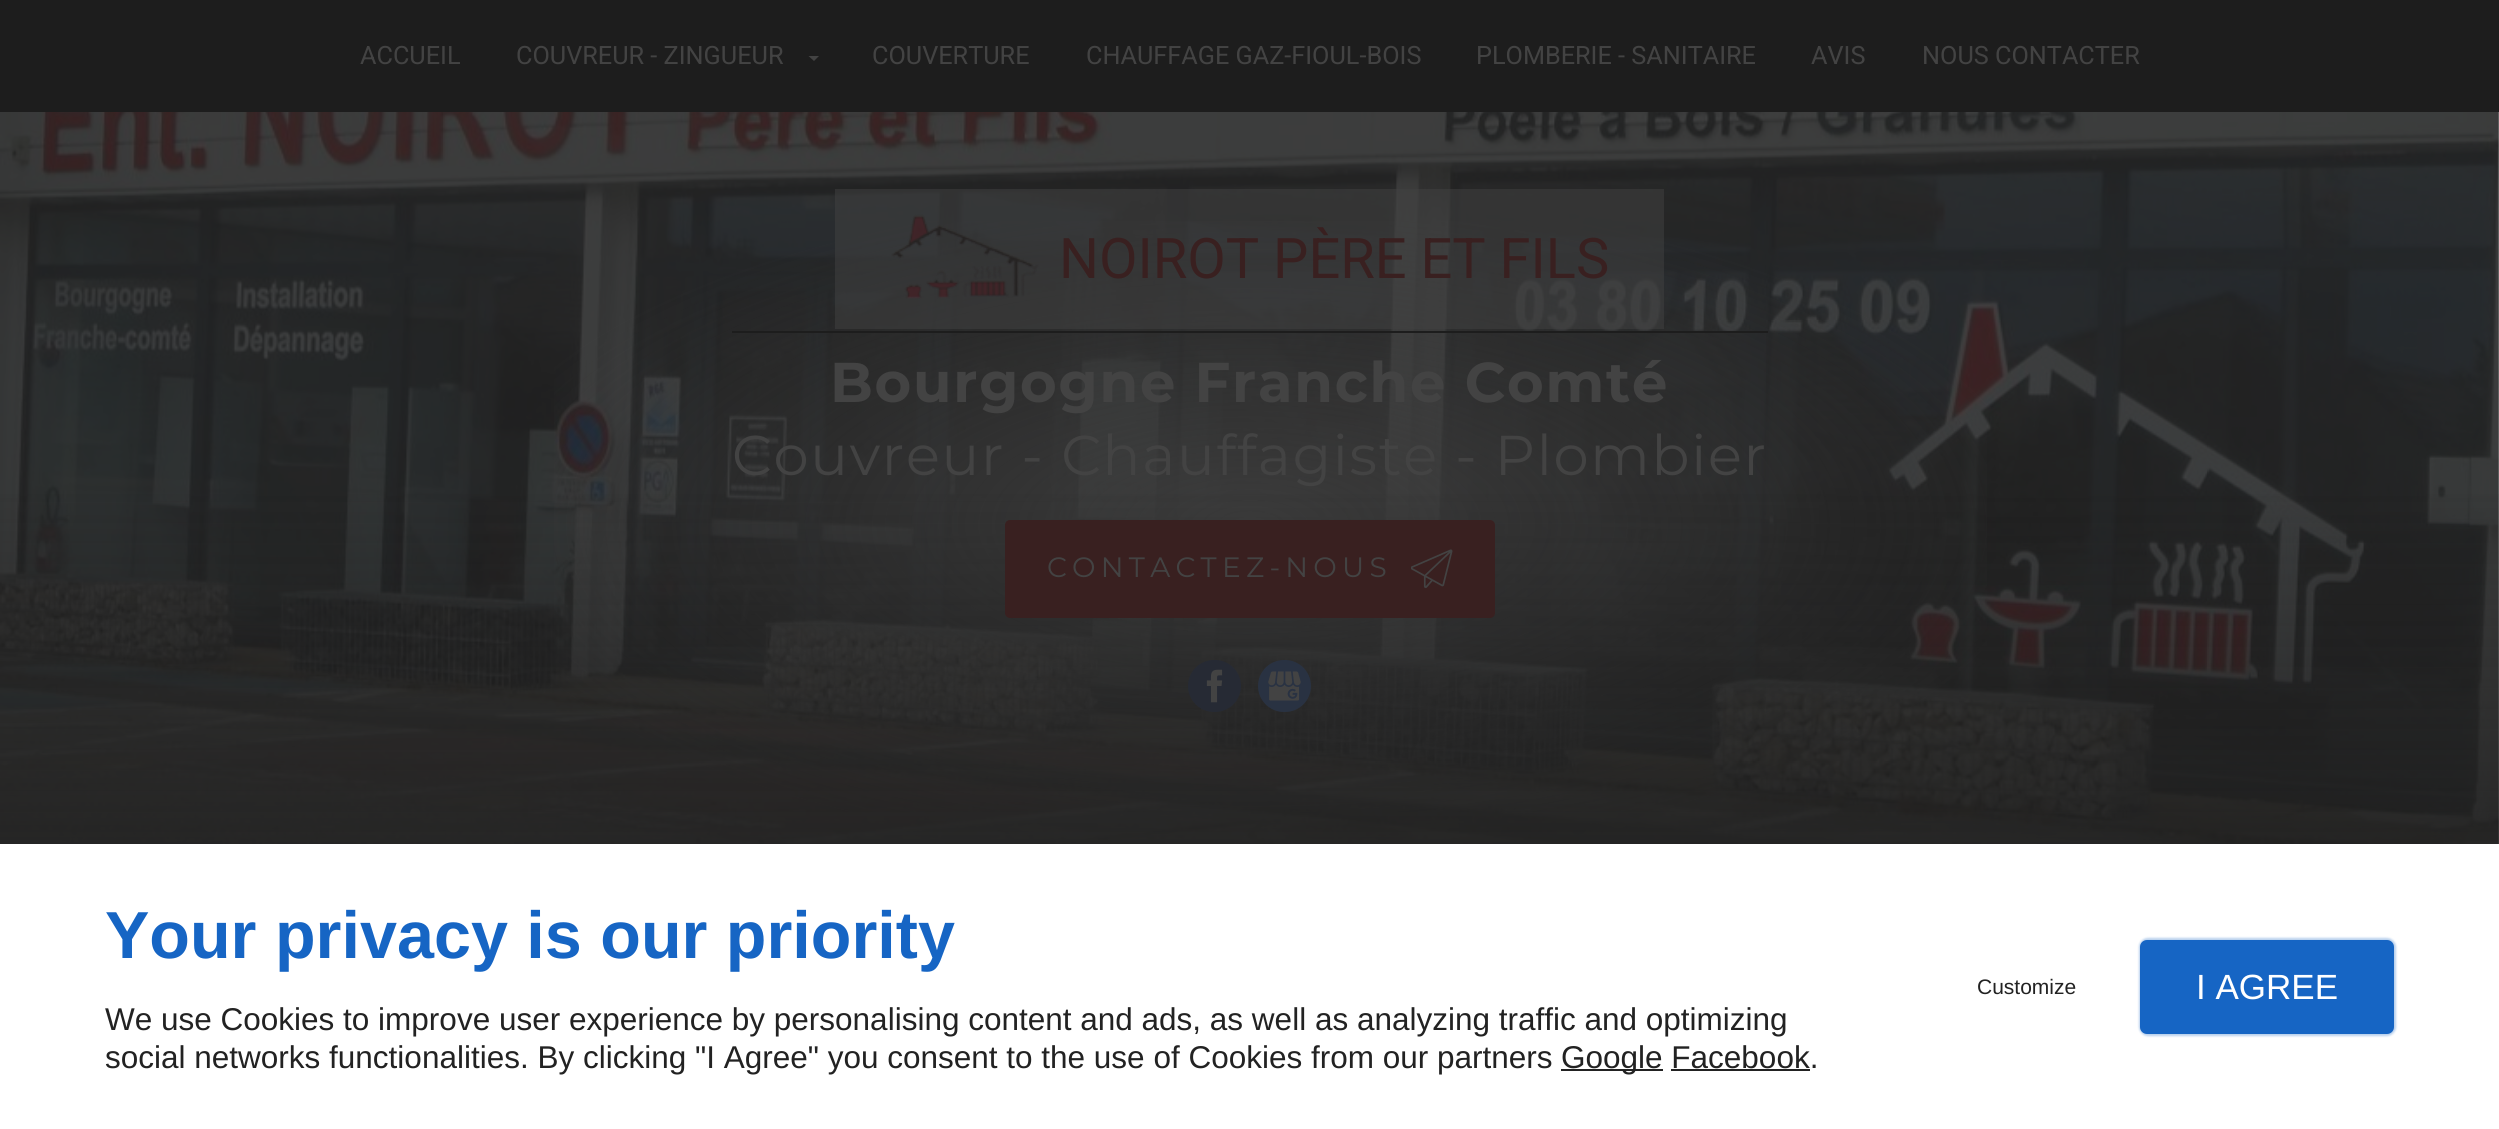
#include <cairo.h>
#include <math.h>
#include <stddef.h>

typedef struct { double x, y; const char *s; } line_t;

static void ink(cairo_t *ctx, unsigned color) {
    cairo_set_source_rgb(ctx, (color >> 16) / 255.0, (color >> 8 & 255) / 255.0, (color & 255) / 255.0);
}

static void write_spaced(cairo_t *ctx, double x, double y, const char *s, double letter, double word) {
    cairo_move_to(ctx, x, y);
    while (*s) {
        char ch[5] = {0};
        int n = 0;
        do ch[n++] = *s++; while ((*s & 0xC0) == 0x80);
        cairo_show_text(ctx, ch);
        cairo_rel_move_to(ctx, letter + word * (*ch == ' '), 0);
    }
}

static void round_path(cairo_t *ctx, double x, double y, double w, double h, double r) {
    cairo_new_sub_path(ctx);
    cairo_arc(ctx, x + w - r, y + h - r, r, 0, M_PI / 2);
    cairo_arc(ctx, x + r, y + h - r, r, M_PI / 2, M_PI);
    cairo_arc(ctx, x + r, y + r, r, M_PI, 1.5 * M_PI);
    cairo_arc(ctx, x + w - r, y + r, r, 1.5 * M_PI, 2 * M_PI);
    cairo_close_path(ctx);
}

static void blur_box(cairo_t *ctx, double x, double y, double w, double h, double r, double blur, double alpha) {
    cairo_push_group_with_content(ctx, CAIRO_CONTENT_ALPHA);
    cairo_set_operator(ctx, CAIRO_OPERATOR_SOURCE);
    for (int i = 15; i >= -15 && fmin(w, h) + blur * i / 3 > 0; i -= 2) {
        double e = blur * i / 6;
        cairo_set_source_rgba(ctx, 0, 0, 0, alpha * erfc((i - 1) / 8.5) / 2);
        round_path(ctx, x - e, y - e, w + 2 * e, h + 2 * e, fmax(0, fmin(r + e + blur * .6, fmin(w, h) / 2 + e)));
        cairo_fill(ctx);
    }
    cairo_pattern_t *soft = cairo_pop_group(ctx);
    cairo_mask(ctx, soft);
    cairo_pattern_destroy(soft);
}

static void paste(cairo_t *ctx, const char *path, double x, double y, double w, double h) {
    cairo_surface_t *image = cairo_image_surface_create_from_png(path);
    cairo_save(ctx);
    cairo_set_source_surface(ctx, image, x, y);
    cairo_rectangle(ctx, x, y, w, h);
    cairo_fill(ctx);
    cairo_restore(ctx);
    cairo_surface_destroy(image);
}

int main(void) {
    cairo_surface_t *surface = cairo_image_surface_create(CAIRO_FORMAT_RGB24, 2499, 1129);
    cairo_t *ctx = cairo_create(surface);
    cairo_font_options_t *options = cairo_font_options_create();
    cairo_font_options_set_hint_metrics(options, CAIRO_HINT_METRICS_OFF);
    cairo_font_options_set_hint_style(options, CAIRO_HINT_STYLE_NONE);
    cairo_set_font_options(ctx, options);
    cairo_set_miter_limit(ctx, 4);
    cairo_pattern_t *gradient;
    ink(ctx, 0xFFFFFF);
    cairo_paint(ctx);
    ink(ctx, 0x1D1D1D);
    cairo_rectangle(ctx, 0, 0, 2499, 112);
    cairo_fill(ctx);
    cairo_select_font_face(ctx, "Roboto", CAIRO_FONT_SLANT_NORMAL, CAIRO_FONT_WEIGHT_NORMAL);
    cairo_set_font_size(ctx, 25.25);
    ink(ctx, 0x434343);
    cairo_move_to(ctx, 360, 64);
    cairo_show_text(ctx, "ACCUEIL");
    cairo_move_to(ctx, 516, 64);
    cairo_show_text(ctx, "COUVREUR - ZINGUEUR");
    cairo_new_path(ctx);
    cairo_move_to(ctx, 808.5, 56);
    cairo_line_to(ctx, 819, 56);
    cairo_line_to(ctx, 814, 61);
    cairo_close_path(ctx);
    cairo_fill(ctx);
    {
        static const line_t items[] = {
            {872, 64, "COUVERTURE"},
            {1086, 64, "CHAUFFAGE GAZ-FIOUL-BOIS"},
            {1476, 64, "PLOMBERIE - SANITAIRE"},
            {1811, 64, "AVIS"},
            {1922, 64, "NOUS CONTACTER"},
        };
        for (size_t i = 0; i < sizeof items / sizeof *items; i++) {
            cairo_move_to(ctx, items[i].x, items[i].y);
            cairo_show_text(ctx, items[i].s);
        }
    }
    paste(ctx, "media/1.png", 0, 112, 2499, 732);
    gradient = cairo_pattern_create_radial(0, 0, 0, 0, 0, 1);
    cairo_pattern_set_matrix(gradient, &(cairo_matrix_t){1.0 / 1767, 0, 0, 1.0 / 742, -1.0 * 1250 / 1767, -1.0 * 525 / 742});
    cairo_pattern_add_color_stop_rgba(gradient, 0, 0.235, 0.235, 0.235, 1);
    cairo_pattern_add_color_stop_rgba(gradient, 0.45, 0.235, 0.235, 0.235, 0);
    cairo_set_source(ctx, gradient);
    cairo_pattern_destroy(gradient);
    cairo_rectangle(ctx, 554, 221, 1433, 591);
    cairo_fill(ctx);
    gradient = cairo_pattern_create_linear(1250, 0, 1250, 1071);
    cairo_pattern_add_color_stop_rgba(gradient, 0.44, 0.114, 0.114, 0.114, 0);
    cairo_pattern_add_color_stop_rgba(gradient, 1, 0.114, 0.114, 0.114, 1);
    cairo_set_source(ctx, gradient);
    cairo_pattern_destroy(gradient);
    cairo_rectangle(ctx, 0, 494, 2499, 350);
    cairo_fill(ctx);
    cairo_set_source_rgba(ctx, 0.263, 0.263, 0.263, 0.5);
    cairo_rectangle(ctx, 835, 189, 829, 140);
    cairo_fill(ctx);
    paste(ctx, "media/2.png", 891, 214, 148, 85);
    cairo_set_font_size(ctx, 56);
    ink(ctx, 0x392020);
    cairo_move_to(ctx, 1059, 278);
    cairo_show_text(ctx, "NOIROT PÈRE ET FILS");
    ink(ctx, 0x1D1D1D);
    cairo_rectangle(ctx, 732, 331, 1036, 2);
    cairo_fill(ctx);
    cairo_select_font_face(ctx, "Montserrat Thin", CAIRO_FONT_SLANT_NORMAL, CAIRO_FONT_WEIGHT_NORMAL);
    ink(ctx, 0x434343);
    write_spaced(ctx, 830, 402, "Bourgogne Franche Comté", 1.75, 0);
    cairo_select_font_face(ctx, "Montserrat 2 Thin", CAIRO_FONT_SLANT_NORMAL, CAIRO_FONT_WEIGHT_NORMAL);
    write_spaced(ctx, 732, 475, "Couvreur - Chauffagiste - Plombier", 1.75, 0);
    ink(ctx, 0x392020);
    round_path(ctx, 1005, 520, 490, 98, 5);
    cairo_fill(ctx);
    cairo_set_font_size(ctx, 28);
    ink(ctx, 0x434343);
    write_spaced(ctx, 1047, 577, "CONTACTEZ-NOUS", 5.25, 0);
    paste(ctx, "media/3.png", 1411, 549, 42, 40);
    ink(ctx, 0x262A34);
    round_path(ctx, 1188, 660, 53, 52, 26);
    cairo_fill(ctx);
    paste(ctx, "media/4.png", 1206, 669, 17, 34);
    ink(ctx, 0x293242);
    round_path(ctx, 1258, 660, 53, 52, 26);
    cairo_fill(ctx);
    paste(ctx, "media/5.png", 1268, 671, 33, 30);
    cairo_select_font_face(ctx, "Liberation Sans", CAIRO_FONT_SLANT_NORMAL, CAIRO_FONT_WEIGHT_BOLD);
    cairo_set_font_size(ctx, 66.5);
    ink(ctx, 0x1665C4);
    cairo_move_to(ctx, 105, 958);
    cairo_show_text(ctx, "Your privacy is our priority");
    cairo_select_font_face(ctx, "Liberation Sans", CAIRO_FONT_SLANT_NORMAL, CAIRO_FONT_WEIGHT_NORMAL);
    cairo_set_font_size(ctx, 31.5);
    ink(ctx, 0x222222);
    cairo_move_to(ctx, 105, 1030);
    cairo_show_text(ctx, "We use Cookies to improve user experience by personalising content and ads, as well as analyzing traffic and optimizing");
    cairo_move_to(ctx, 105, 1068);
    cairo_show_text(ctx, "social networks functionalities. By clicking \"I Agree\" you consent to the use of Cookies from our partners");
    cairo_rectangle(ctx, 1561, 1069, 102, 2);
    cairo_fill(ctx);
    cairo_move_to(ctx, 1561, 1068);
    cairo_show_text(ctx, "Google Facebook.");
    cairo_rectangle(ctx, 1671, 1069, 139, 2);
    cairo_fill(ctx);
    cairo_set_font_size(ctx, 21);
    cairo_move_to(ctx, 1977, 994);
    cairo_show_text(ctx, "Customize");
    ink(ctx, 0x1665C4);
    blur_box(ctx, 2139, 938, 257, 98, 9, 1, 0.3);
    ink(ctx, 0x1665C4);
    round_path(ctx, 2142, 942, 250, 90, 5);
    cairo_fill_preserve(ctx);
    cairo_set_line_width(ctx, 4);
    cairo_stroke(ctx);
    cairo_set_font_size(ctx, 35);
    ink(ctx, 0xFFFFFF);
    cairo_move_to(ctx, 2196, 999);
    cairo_show_text(ctx, "I AGREE");
    cairo_surface_write_to_png(surface, "image.png");
    cairo_font_options_destroy(options);
    cairo_destroy(ctx);
    cairo_surface_destroy(surface);
    return 0;
}
